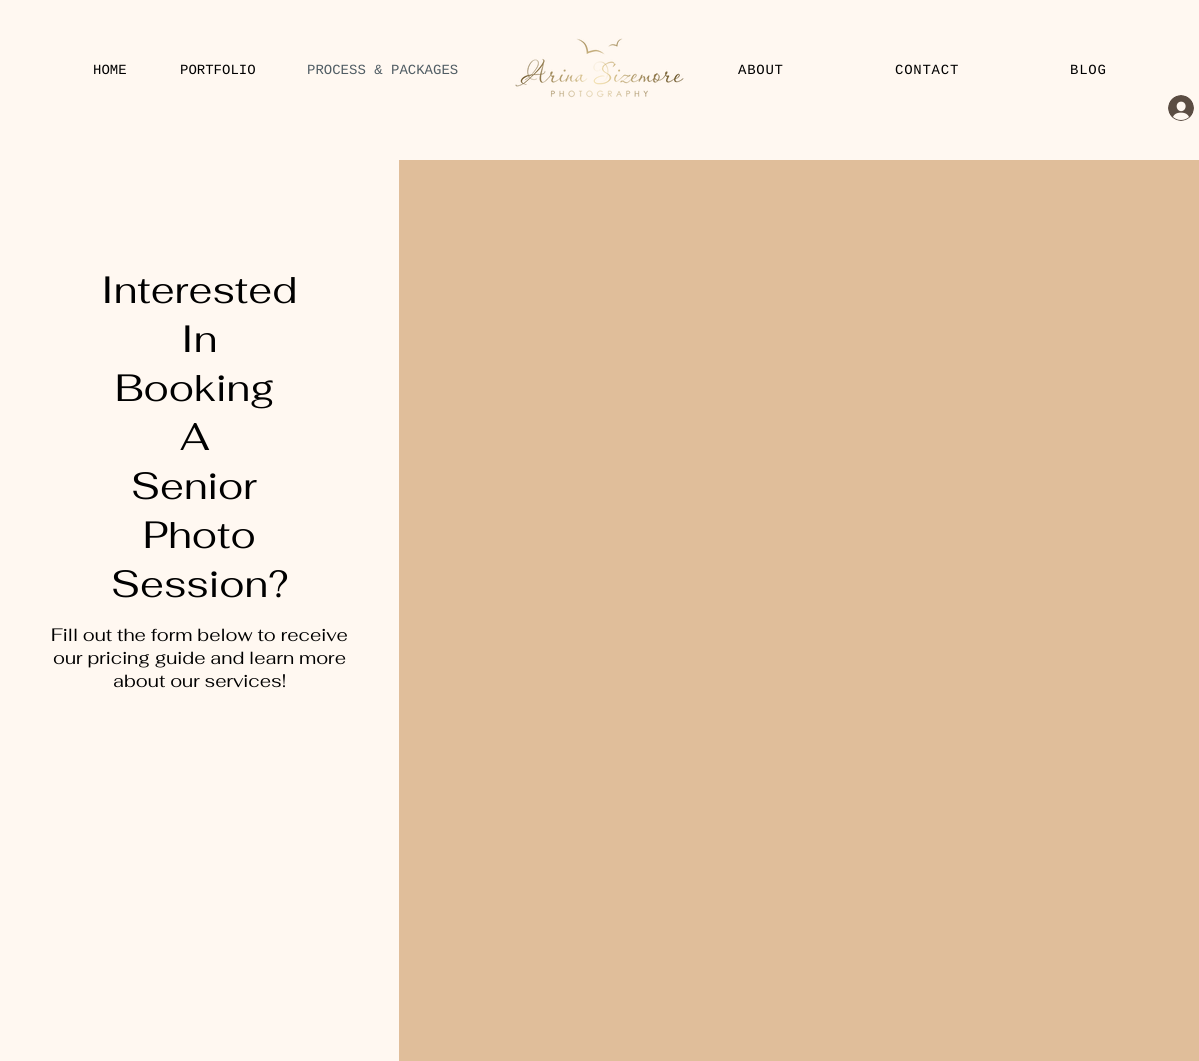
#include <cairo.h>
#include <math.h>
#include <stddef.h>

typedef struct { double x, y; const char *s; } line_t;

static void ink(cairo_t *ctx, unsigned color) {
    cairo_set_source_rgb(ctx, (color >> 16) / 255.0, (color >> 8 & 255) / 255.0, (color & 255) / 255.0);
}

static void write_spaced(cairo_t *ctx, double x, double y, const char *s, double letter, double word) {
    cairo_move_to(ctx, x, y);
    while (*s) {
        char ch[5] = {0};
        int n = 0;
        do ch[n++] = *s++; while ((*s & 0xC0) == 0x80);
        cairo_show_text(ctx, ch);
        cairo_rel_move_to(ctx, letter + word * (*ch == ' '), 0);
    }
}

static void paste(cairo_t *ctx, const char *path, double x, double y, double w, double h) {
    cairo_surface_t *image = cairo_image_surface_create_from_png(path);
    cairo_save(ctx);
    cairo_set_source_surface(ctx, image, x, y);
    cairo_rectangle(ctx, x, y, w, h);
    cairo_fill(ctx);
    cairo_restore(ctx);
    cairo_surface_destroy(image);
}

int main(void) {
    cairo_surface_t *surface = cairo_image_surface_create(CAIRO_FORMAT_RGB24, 1199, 1061);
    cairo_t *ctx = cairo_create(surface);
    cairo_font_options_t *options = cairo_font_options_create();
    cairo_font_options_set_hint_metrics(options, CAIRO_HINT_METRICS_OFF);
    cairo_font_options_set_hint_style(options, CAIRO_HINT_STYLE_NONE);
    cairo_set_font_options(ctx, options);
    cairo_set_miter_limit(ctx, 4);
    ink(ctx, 0xFFF8F1);
    cairo_paint(ctx);
    cairo_select_font_face(ctx, "Liberation Mono", CAIRO_FONT_SLANT_NORMAL, CAIRO_FONT_WEIGHT_NORMAL);
    cairo_set_font_size(ctx, 14);
    ink(ctx, 0x000000);
    cairo_move_to(ctx, 93, 74);
    cairo_show_text(ctx, "HOME");
    cairo_move_to(ctx, 180, 74);
    cairo_show_text(ctx, "PORTFOLIO");
    ink(ctx, 0x505D64);
    cairo_move_to(ctx, 307, 74);
    cairo_show_text(ctx, "PROCESS & PACKAGES");
    paste(ctx, "media/1.png", 515, 38, 169, 60);
    ink(ctx, 0x000000);
    {
        static const line_t items[] = {
            {738, 74, "ABOUT"},
            {895, 74, "CONTACT"},
            {1070, 74, "BLOG"},
        };
        for (size_t i = 0; i < sizeof items / sizeof *items; i++) {
            write_spaced(ctx, items[i].x, items[i].y, items[i].s, 0.75, 0);
        }
    }
    paste(ctx, "media/2.png", 1168, 95, 26, 26);
    cairo_select_font_face(ctx, "Fahkwang", CAIRO_FONT_SLANT_NORMAL, CAIRO_FONT_WEIGHT_NORMAL);
    cairo_set_font_size(ctx, 38);
    {
        static const line_t items[] = {
            {101, 303, "Interested"},
            {181, 352, "In"},
            {115, 401, "Booking"},
            {180, 450, "A"},
            {131, 499, "Senior"},
            {143, 548, "Photo"},
            {111, 597, "Session?"},
        };
        for (size_t i = 0; i < sizeof items / sizeof *items; i++) {
            cairo_move_to(ctx, items[i].x, items[i].y);
            cairo_show_text(ctx, items[i].s);
        }
    }
    cairo_set_font_size(ctx, 18);
    {
        static const line_t items[] = {
            {51, 641, "Fill out the form below to receive"},
            {53, 664, "our pricing guide and learn more"},
            {113, 687, "about our services!"},
        };
        for (size_t i = 0; i < sizeof items / sizeof *items; i++) {
            cairo_move_to(ctx, items[i].x, items[i].y);
            cairo_show_text(ctx, items[i].s);
        }
    }
    ink(ctx, 0xE0BE9A);
    cairo_rectangle(ctx, 399, 160, 800, 901);
    cairo_fill(ctx);
    cairo_surface_write_to_png(surface, "image.png");
    cairo_font_options_destroy(options);
    cairo_destroy(ctx);
    cairo_surface_destroy(surface);
    return 0;
}
